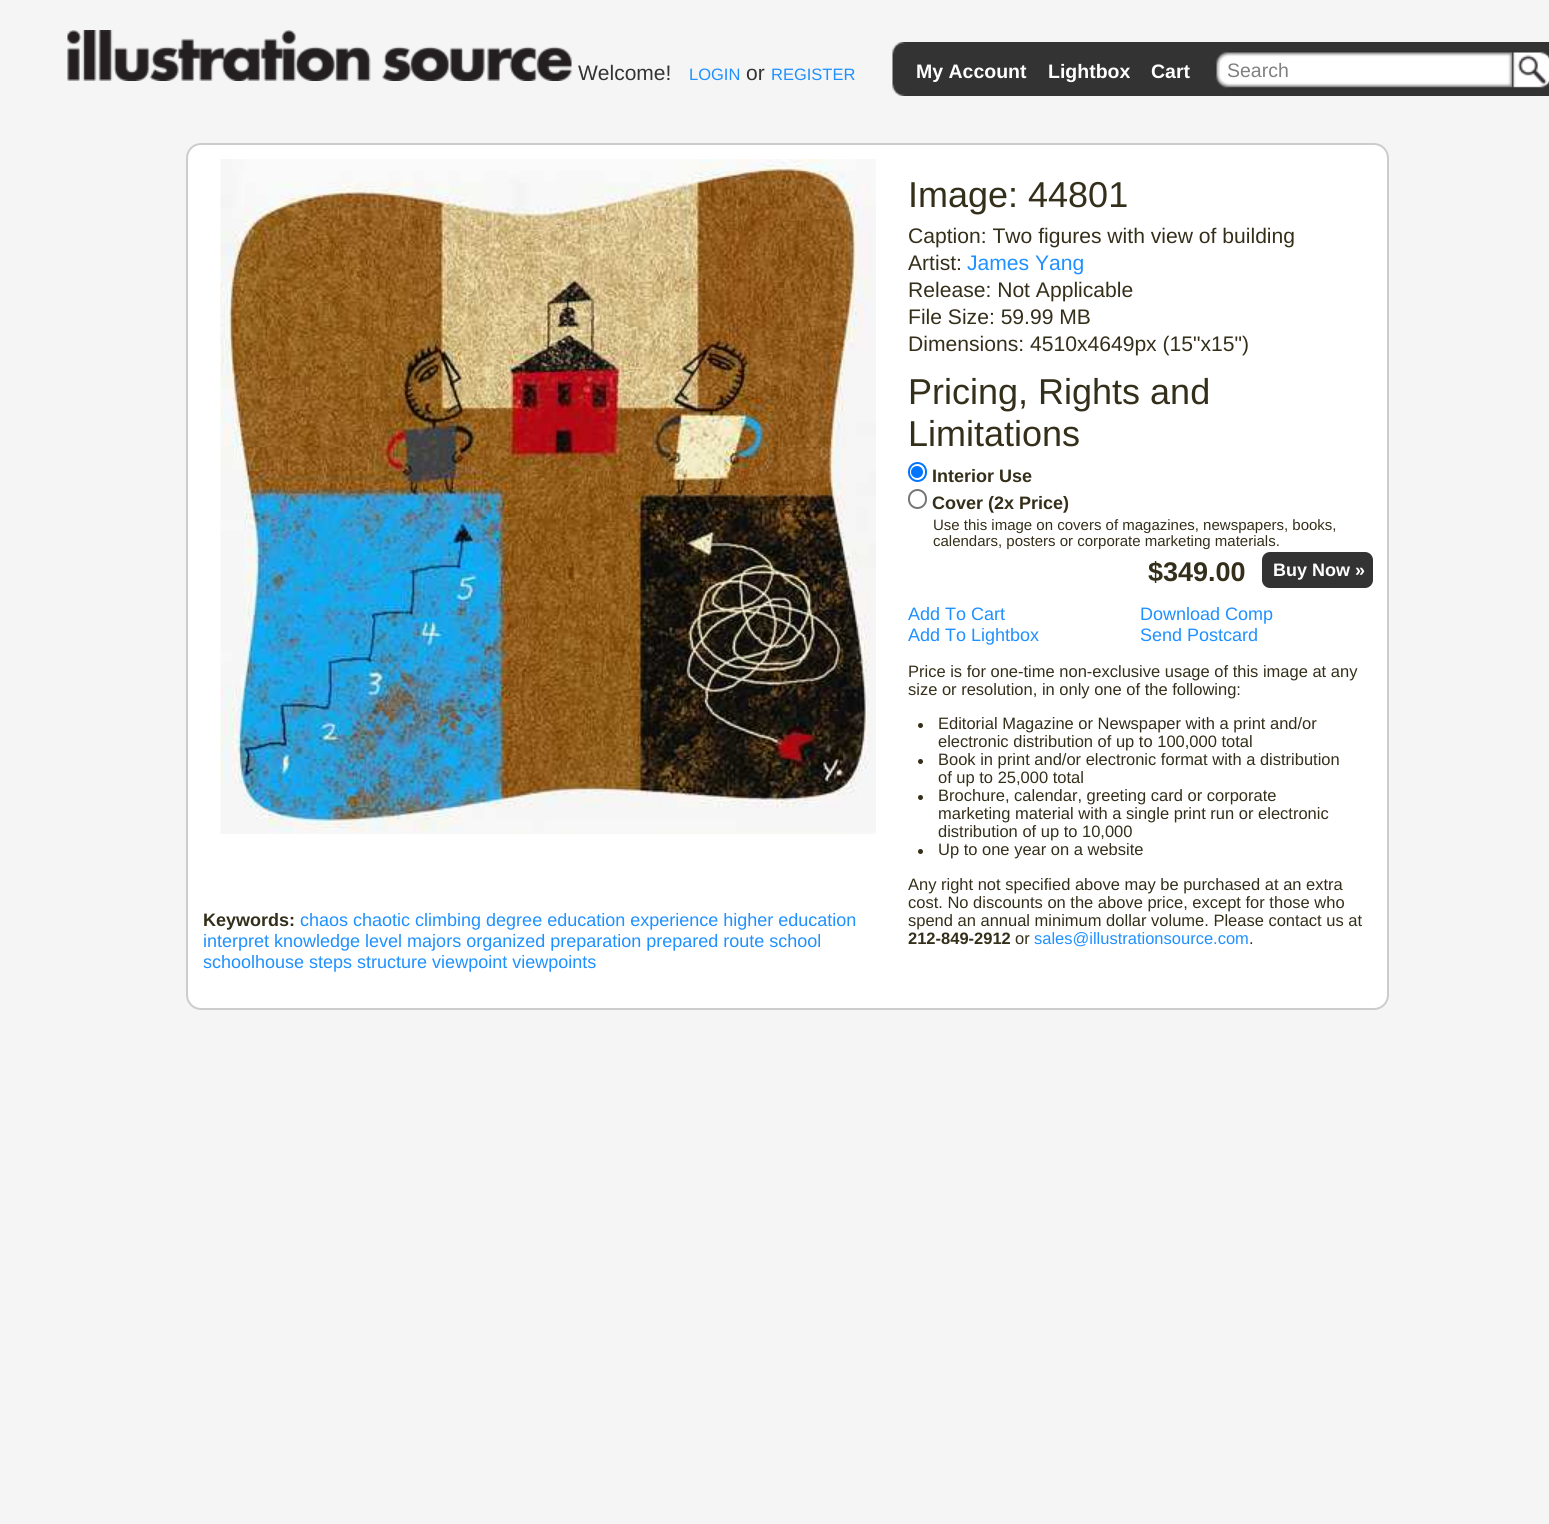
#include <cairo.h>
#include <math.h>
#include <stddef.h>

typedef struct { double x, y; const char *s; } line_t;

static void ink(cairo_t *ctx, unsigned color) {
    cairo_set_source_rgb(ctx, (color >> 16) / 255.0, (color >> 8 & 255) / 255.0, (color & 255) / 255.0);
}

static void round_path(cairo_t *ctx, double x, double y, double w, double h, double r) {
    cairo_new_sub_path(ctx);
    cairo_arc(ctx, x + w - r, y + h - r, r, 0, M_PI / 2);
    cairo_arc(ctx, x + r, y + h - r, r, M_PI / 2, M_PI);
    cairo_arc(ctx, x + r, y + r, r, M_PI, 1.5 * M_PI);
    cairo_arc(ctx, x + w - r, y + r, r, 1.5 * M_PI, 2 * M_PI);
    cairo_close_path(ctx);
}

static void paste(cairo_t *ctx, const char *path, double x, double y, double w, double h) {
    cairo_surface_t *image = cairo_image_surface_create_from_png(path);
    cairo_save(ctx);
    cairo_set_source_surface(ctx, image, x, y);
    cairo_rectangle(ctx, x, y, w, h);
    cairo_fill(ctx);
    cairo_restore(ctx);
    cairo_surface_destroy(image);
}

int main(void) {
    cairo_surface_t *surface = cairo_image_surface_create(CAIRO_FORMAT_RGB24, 1549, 1524);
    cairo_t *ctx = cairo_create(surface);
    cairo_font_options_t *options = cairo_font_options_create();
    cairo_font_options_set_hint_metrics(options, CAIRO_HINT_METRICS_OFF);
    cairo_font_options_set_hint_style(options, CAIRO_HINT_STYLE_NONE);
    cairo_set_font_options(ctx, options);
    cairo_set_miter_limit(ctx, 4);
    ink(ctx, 0xF5F5F5);
    cairo_paint(ctx);
    paste(ctx, "media/1.png", 67, 30, 505, 51);
    cairo_select_font_face(ctx, "Liberation Sans", CAIRO_FONT_SLANT_NORMAL, CAIRO_FONT_WEIGHT_NORMAL);
    cairo_set_font_size(ctx, 21);
    ink(ctx, 0x333333);
    cairo_move_to(ctx, 578, 80);
    cairo_show_text(ctx, "Welcome!");
    cairo_set_font_size(ctx, 16.5);
    ink(ctx, 0x1E90FF);
    cairo_move_to(ctx, 689, 80);
    cairo_show_text(ctx, "LOGIN");
    cairo_set_font_size(ctx, 21);
    ink(ctx, 0x333333);
    cairo_move_to(ctx, 746, 80);
    cairo_show_text(ctx, "or");
    cairo_set_font_size(ctx, 16.5);
    ink(ctx, 0x1E90FF);
    cairo_move_to(ctx, 771, 80);
    cairo_show_text(ctx, "REGISTER");
    ink(ctx, 0x333333);
    cairo_rectangle(ctx, 917, 42, 632, 54);
    cairo_fill(ctx);
    paste(ctx, "media/2.png", 892, 42, 25, 54);
    cairo_select_font_face(ctx, "Liberation Sans", CAIRO_FONT_SLANT_NORMAL, CAIRO_FONT_WEIGHT_BOLD);
    cairo_set_font_size(ctx, 19.5);
    ink(ctx, 0xFFFFFF);
    {
        static const line_t items[] = {
            {916, 78, "My Account"},
            {1048, 78, "Lightbox"},
            {1151, 78, "Cart"},
        };
        for (size_t i = 0; i < sizeof items / sizeof *items; i++) {
            cairo_move_to(ctx, items[i].x, items[i].y);
            cairo_show_text(ctx, items[i].s);
        }
    }
    paste(ctx, "media/3.png", 1215, 51, 334, 38);
    cairo_select_font_face(ctx, "Liberation Sans", CAIRO_FONT_SLANT_NORMAL, CAIRO_FONT_WEIGHT_NORMAL);
    ink(ctx, 0x808080);
    cairo_move_to(ctx, 1227, 77);
    cairo_show_text(ctx, "Search");
    ink(ctx, 0xFFFFFF);
    round_path(ctx, 187, 144, 1201, 865, 14);
    cairo_fill_preserve(ctx);
    ink(ctx, 0xCCCCCC);
    cairo_stroke(ctx);
    paste(ctx, "media/4.png", 220, 159, 656, 675);
    cairo_select_font_face(ctx, "Liberation Sans", CAIRO_FONT_SLANT_NORMAL, CAIRO_FONT_WEIGHT_BOLD);
    cairo_set_font_size(ctx, 18);
    ink(ctx, 0x342F1A);
    cairo_move_to(ctx, 203, 926);
    cairo_show_text(ctx, "Keywords:");
    cairo_select_font_face(ctx, "Liberation Sans", CAIRO_FONT_SLANT_NORMAL, CAIRO_FONT_WEIGHT_NORMAL);
    ink(ctx, 0x1E90FF);
    {
        static const line_t items[] = {
            {300, 926, "chaos chaotic climbing degree education experience higher education"},
            {203, 947, "interpret knowledge level majors organized preparation prepared route school"},
            {203, 968, "schoolhouse steps structure viewpoint viewpoints"},
        };
        for (size_t i = 0; i < sizeof items / sizeof *items; i++) {
            cairo_move_to(ctx, items[i].x, items[i].y);
            cairo_show_text(ctx, items[i].s);
        }
    }
    cairo_set_font_size(ctx, 36);
    ink(ctx, 0x342F1A);
    cairo_move_to(ctx, 908, 207);
    cairo_show_text(ctx, "Image: 44801");
    cairo_set_font_size(ctx, 21.1);
    cairo_move_to(ctx, 908, 243);
    cairo_show_text(ctx, "Caption: Two figures with view of building");
    cairo_move_to(ctx, 908, 270);
    cairo_show_text(ctx, "Artist:");
    ink(ctx, 0x1E90FF);
    cairo_move_to(ctx, 967, 270);
    cairo_show_text(ctx, "James Yang");
    ink(ctx, 0x342F1A);
    {
        static const line_t items[] = {
            {908, 297, "Release: Not Applicable"},
            {908, 324, "File Size: 59.99 MB"},
            {908, 351, "Dimensions: 4510x4649px (15\"x15\")"},
        };
        for (size_t i = 0; i < sizeof items / sizeof *items; i++) {
            cairo_move_to(ctx, items[i].x, items[i].y);
            cairo_show_text(ctx, items[i].s);
        }
    }
    cairo_set_font_size(ctx, 36);
    cairo_move_to(ctx, 908, 404);
    cairo_show_text(ctx, "Pricing, Rights and");
    cairo_move_to(ctx, 908, 446);
    cairo_show_text(ctx, "Limitations");
    round_path(ctx, 909, 463, 17, 18, 8.5);
    ink(ctx, 0x0075FF);
    cairo_stroke(ctx);
    cairo_arc(ctx, 917, 472, 6, 0, 2 * M_PI);
    cairo_fill(ctx);
    cairo_select_font_face(ctx, "Liberation Sans", CAIRO_FONT_SLANT_NORMAL, CAIRO_FONT_WEIGHT_BOLD);
    cairo_set_font_size(ctx, 18);
    ink(ctx, 0x342F1A);
    cairo_move_to(ctx, 932, 482);
    cairo_show_text(ctx, "Interior Use");
    round_path(ctx, 909, 490, 17, 18, 8.5);
    ink(ctx, 0x767676);
    cairo_stroke(ctx);
    ink(ctx, 0x342F1A);
    cairo_move_to(ctx, 932, 509);
    cairo_show_text(ctx, "Cover (2x Price)");
    cairo_select_font_face(ctx, "Liberation Sans", CAIRO_FONT_SLANT_NORMAL, CAIRO_FONT_WEIGHT_NORMAL);
    cairo_set_font_size(ctx, 15);
    cairo_move_to(ctx, 933, 530);
    cairo_show_text(ctx, "Use this image on covers of magazines, newspapers, books,");
    cairo_move_to(ctx, 933, 546);
    cairo_show_text(ctx, "calendars, posters or corporate marketing materials.");
    cairo_select_font_face(ctx, "Liberation Sans", CAIRO_FONT_SLANT_NORMAL, CAIRO_FONT_WEIGHT_BOLD);
    cairo_set_font_size(ctx, 27);
    cairo_move_to(ctx, 1148, 581);
    cairo_show_text(ctx, "$349.00");
    ink(ctx, 0x333333);
    round_path(ctx, 1262, 552, 111, 36, 8);
    cairo_fill(ctx);
    cairo_set_font_size(ctx, 18);
    ink(ctx, 0xFFFFFF);
    cairo_move_to(ctx, 1273, 576);
    cairo_show_text(ctx, "Buy Now »");
    cairo_select_font_face(ctx, "Liberation Sans", CAIRO_FONT_SLANT_NORMAL, CAIRO_FONT_WEIGHT_NORMAL);
    ink(ctx, 0x1E90FF);
    {
        static const line_t items[] = {
            {908, 620, "Add To Cart"},
            {1140, 620, "Download Comp"},
            {908, 641, "Add To Lightbox"},
            {1140, 641, "Send Postcard"},
        };
        for (size_t i = 0; i < sizeof items / sizeof *items; i++) {
            cairo_move_to(ctx, items[i].x, items[i].y);
            cairo_show_text(ctx, items[i].s);
        }
    }
    cairo_set_font_size(ctx, 16.5);
    ink(ctx, 0x342F1A);
    cairo_move_to(ctx, 908, 677);
    cairo_show_text(ctx, "Price is for one-time non-exclusive usage of this image at any");
    cairo_move_to(ctx, 908, 695);
    cairo_show_text(ctx, "size or resolution, in only one of the following:");
    cairo_new_path(ctx);
    cairo_arc(ctx, 920.5, 725.5, 2.5, 0, 2 * M_PI);
    cairo_fill(ctx);
    cairo_move_to(ctx, 938, 729);
    cairo_show_text(ctx, "Editorial Magazine or Newspaper with a print and/or");
    cairo_move_to(ctx, 938, 747);
    cairo_show_text(ctx, "electronic distribution of up to 100,000 total");
    cairo_new_path(ctx);
    cairo_arc(ctx, 920.5, 761.5, 2.5, 0, 2 * M_PI);
    cairo_fill(ctx);
    cairo_move_to(ctx, 938, 765);
    cairo_show_text(ctx, "Book in print and/or electronic format with a distribution");
    cairo_move_to(ctx, 938, 783);
    cairo_show_text(ctx, "of up to 25,000 total");
    cairo_new_path(ctx);
    cairo_arc(ctx, 920.5, 797.5, 2.5, 0, 2 * M_PI);
    cairo_fill(ctx);
    {
        static const line_t items[] = {
            {938, 801, "Brochure, calendar, greeting card or corporate"},
            {938, 819, "marketing material with a single print run or electronic"},
            {938, 837, "distribution of up to 10,000"},
        };
        for (size_t i = 0; i < sizeof items / sizeof *items; i++) {
            cairo_move_to(ctx, items[i].x, items[i].y);
            cairo_show_text(ctx, items[i].s);
        }
    }
    cairo_new_path(ctx);
    cairo_arc(ctx, 920.5, 851.5, 2.5, 0, 2 * M_PI);
    cairo_fill(ctx);
    {
        static const line_t items[] = {
            {938, 855, "Up to one year on a website"},
            {908, 890, "Any right not specified above may be purchased at an extra"},
            {908, 908, "cost. No discounts on the above price, except for those who"},
            {908, 926, "spend an annual minimum dollar volume. Please contact us at"},
        };
        for (size_t i = 0; i < sizeof items / sizeof *items; i++) {
            cairo_move_to(ctx, items[i].x, items[i].y);
            cairo_show_text(ctx, items[i].s);
        }
    }
    cairo_select_font_face(ctx, "Liberation Sans", CAIRO_FONT_SLANT_NORMAL, CAIRO_FONT_WEIGHT_BOLD);
    cairo_move_to(ctx, 908, 944);
    cairo_show_text(ctx, "212-849-2912");
    cairo_select_font_face(ctx, "Liberation Sans", CAIRO_FONT_SLANT_NORMAL, CAIRO_FONT_WEIGHT_NORMAL);
    cairo_move_to(ctx, 1015, 944);
    cairo_show_text(ctx, "or");
    ink(ctx, 0x1E90FF);
    cairo_move_to(ctx, 1034, 944);
    cairo_show_text(ctx, "sales@illustrationsource.com");
    ink(ctx, 0x342F1A);
    cairo_move_to(ctx, 1249, 944);
    cairo_show_text(ctx, ".");
    cairo_surface_write_to_png(surface, "image.png");
    cairo_font_options_destroy(options);
    cairo_destroy(ctx);
    cairo_surface_destroy(surface);
    return 0;
}
